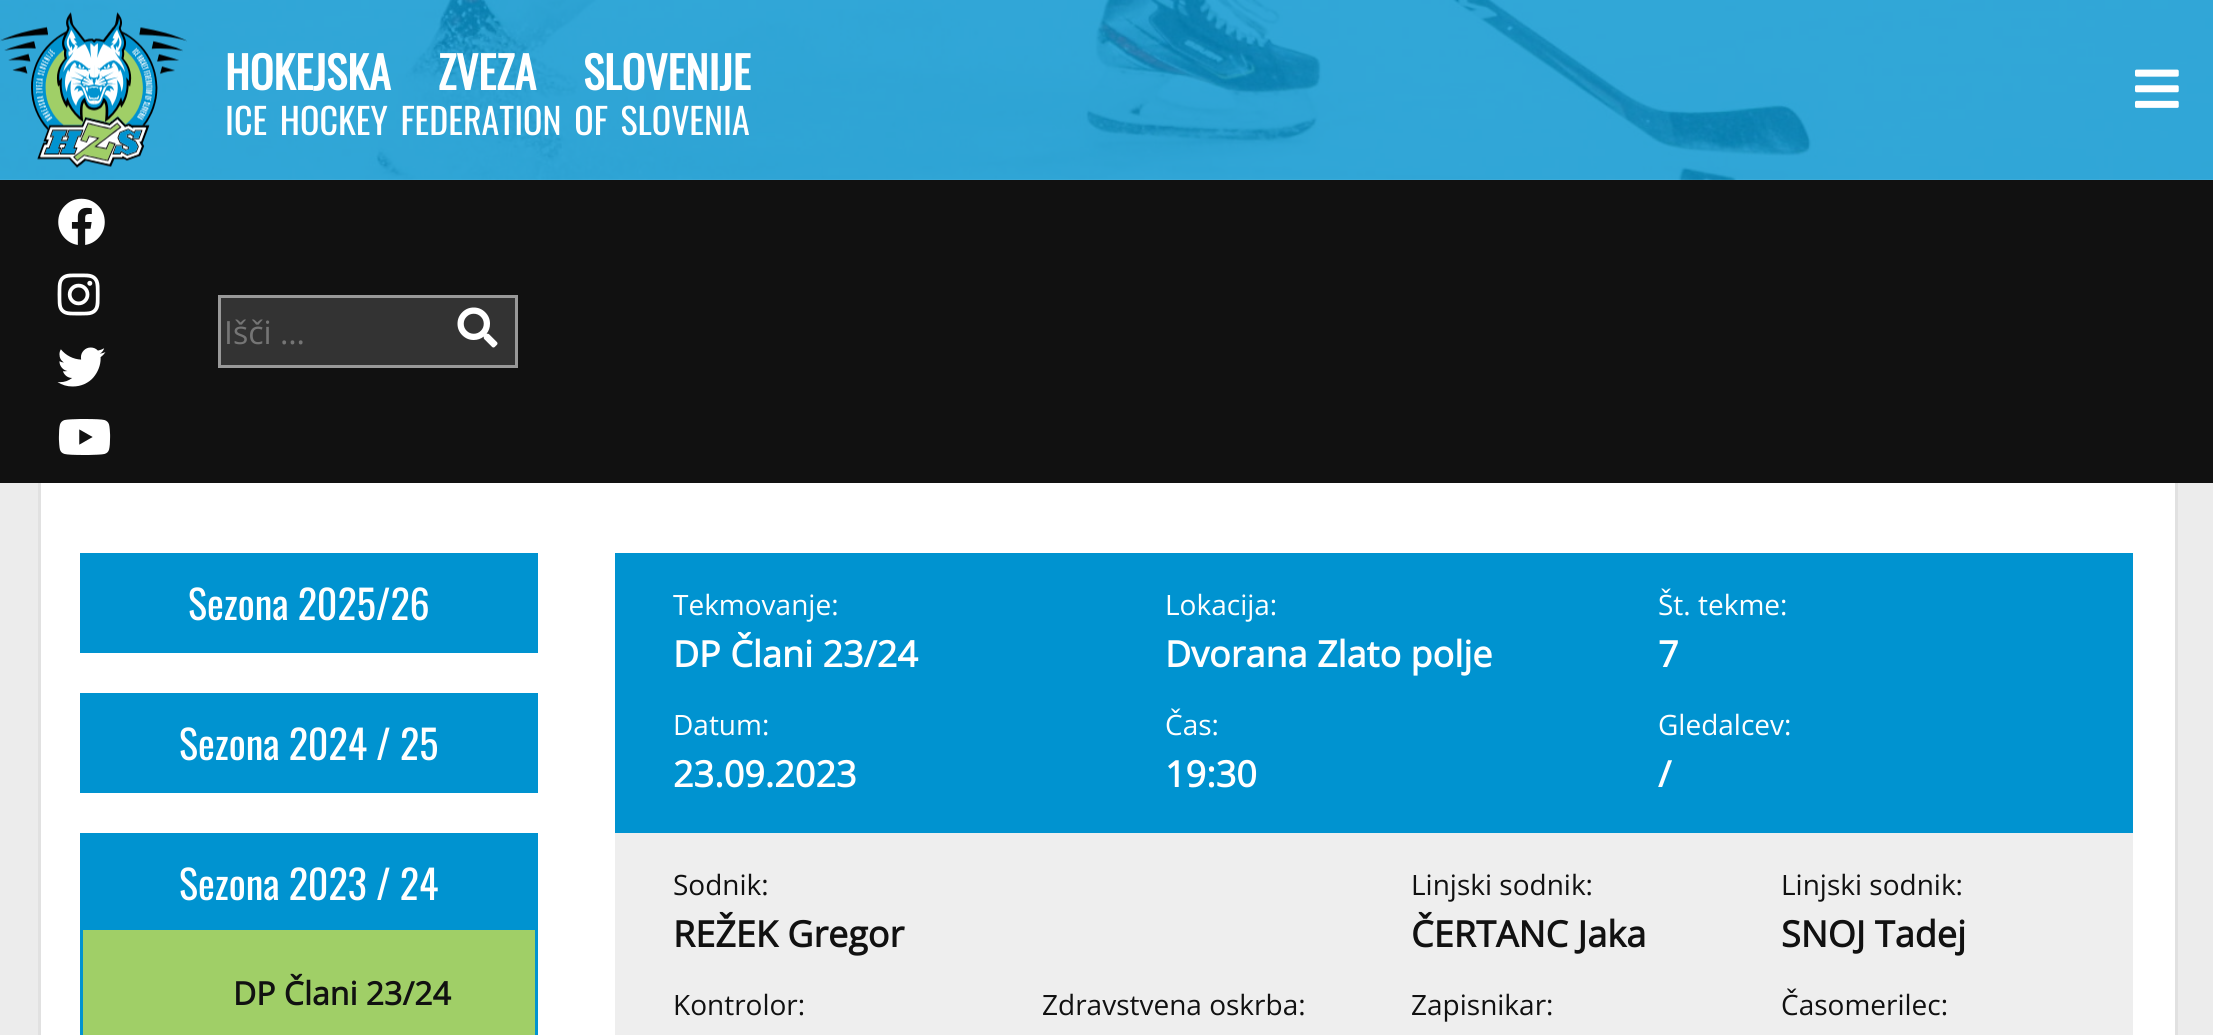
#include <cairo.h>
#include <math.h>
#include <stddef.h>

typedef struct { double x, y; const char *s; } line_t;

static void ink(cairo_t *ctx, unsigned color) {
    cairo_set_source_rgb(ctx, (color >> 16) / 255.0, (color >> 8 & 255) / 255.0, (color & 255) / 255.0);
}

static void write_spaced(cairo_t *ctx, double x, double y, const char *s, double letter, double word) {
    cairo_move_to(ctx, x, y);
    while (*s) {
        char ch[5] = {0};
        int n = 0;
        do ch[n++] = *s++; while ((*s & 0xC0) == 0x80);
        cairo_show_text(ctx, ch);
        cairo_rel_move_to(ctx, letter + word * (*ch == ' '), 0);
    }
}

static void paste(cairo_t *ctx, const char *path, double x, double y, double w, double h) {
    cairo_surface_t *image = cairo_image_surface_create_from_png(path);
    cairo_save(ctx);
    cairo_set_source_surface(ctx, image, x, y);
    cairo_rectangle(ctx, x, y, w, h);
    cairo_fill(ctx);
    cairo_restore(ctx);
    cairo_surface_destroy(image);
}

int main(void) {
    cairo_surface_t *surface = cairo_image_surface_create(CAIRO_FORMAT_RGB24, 2213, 1035);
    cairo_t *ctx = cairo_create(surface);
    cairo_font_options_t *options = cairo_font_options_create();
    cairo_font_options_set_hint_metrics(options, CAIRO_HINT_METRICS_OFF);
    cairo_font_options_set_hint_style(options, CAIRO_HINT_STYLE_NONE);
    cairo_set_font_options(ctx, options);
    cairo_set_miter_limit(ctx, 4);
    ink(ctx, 0xECECEC);
    cairo_paint(ctx);
    paste(ctx, "media/1.png", 0, 0, 2213, 180);
    paste(ctx, "media/2.png", 0, 12, 187, 156);
    cairo_select_font_face(ctx, "Oswald", CAIRO_FONT_SLANT_NORMAL, CAIRO_FONT_WEIGHT_BOLD);
    cairo_set_font_size(ctx, 44);
    ink(ctx, 0xFFFFFF);
    write_spaced(ctx, 225, 90, "HOKEJSKA ZVEZA SLOVENIJE", 0, 37);
    cairo_select_font_face(ctx, "Oswald", CAIRO_FONT_SLANT_NORMAL, CAIRO_FONT_WEIGHT_NORMAL);
    cairo_set_font_size(ctx, 36);
    write_spaced(ctx, 225, 135, "ICE HOCKEY FEDERATION OF SLOVENIA", 0, 4.5);
    paste(ctx, "media/3.png", 2135, 69, 44, 39);
    cairo_rectangle(ctx, 38, 483, 2140, 552);
    cairo_fill(ctx);
    cairo_rectangle(ctx, 39.5, 341.5, 2137, 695);
    cairo_set_source_rgba(ctx, 0, 0, 0, 0.12);
    cairo_set_line_width(ctx, 3);
    cairo_stroke(ctx);
    ink(ctx, 0x111111);
    cairo_rectangle(ctx, 0, 180, 2213, 303);
    cairo_fill(ctx);
    paste(ctx, "media/4.png", 58, 198, 47, 47);
    paste(ctx, "media/5.png", 57, 273, 43, 43);
    paste(ctx, "media/6.png", 57, 347, 49, 40);
    paste(ctx, "media/7.png", 58, 419, 53, 36);
    ink(ctx, 0x333333);
    cairo_rectangle(ctx, 219.5, 296.5, 297, 70);
    cairo_fill_preserve(ctx);
    ink(ctx, 0x999999);
    cairo_stroke(ctx);
    cairo_select_font_face(ctx, "Open Sans", CAIRO_FONT_SLANT_NORMAL, CAIRO_FONT_WEIGHT_NORMAL);
    cairo_set_font_size(ctx, 32);
    ink(ctx, 0x757575);
    cairo_move_to(ctx, 224, 344);
    cairo_show_text(ctx, "Išči …");
    paste(ctx, "media/8.png", 457, 307, 41, 41);
    cairo_rectangle(ctx, 81.5, 554.5, 455, 97);
    ink(ctx, 0x0093D0);
    cairo_stroke(ctx);
    cairo_rectangle(ctx, 83, 556, 452, 94);
    cairo_fill(ctx);
    cairo_select_font_face(ctx, "Oswald", CAIRO_FONT_SLANT_NORMAL, CAIRO_FONT_WEIGHT_NORMAL);
    cairo_set_font_size(ctx, 40);
    ink(ctx, 0xFFFFFF);
    cairo_move_to(ctx, 188, 620);
    cairo_show_text(ctx, "Sezona 2025/26");
    cairo_rectangle(ctx, 81.5, 694.5, 455, 97);
    ink(ctx, 0x0093D0);
    cairo_stroke(ctx);
    cairo_rectangle(ctx, 83, 696, 452, 94);
    cairo_fill(ctx);
    ink(ctx, 0xFFFFFF);
    cairo_move_to(ctx, 179, 760);
    cairo_show_text(ctx, "Sezona 2024 / 25");
    cairo_rectangle(ctx, 81.5, 834.5, 455, 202);
    ink(ctx, 0x0093D0);
    cairo_stroke(ctx);
    cairo_rectangle(ctx, 83, 836, 452, 94);
    cairo_fill(ctx);
    ink(ctx, 0xFFFFFF);
    cairo_move_to(ctx, 179, 900);
    cairo_show_text(ctx, "Sezona 2023 / 24");
    ink(ctx, 0xA0CF67);
    cairo_rectangle(ctx, 83, 930, 452, 105);
    cairo_fill(ctx);
    cairo_select_font_face(ctx, "Open Sans", CAIRO_FONT_SLANT_NORMAL, CAIRO_FONT_WEIGHT_BOLD);
    cairo_set_font_size(ctx, 32);
    ink(ctx, 0x111111);
    cairo_move_to(ctx, 233, 1005);
    cairo_show_text(ctx, "DP Člani 23/24");
    ink(ctx, 0x0093D0);
    cairo_rectangle(ctx, 615, 553, 1518, 280);
    cairo_fill(ctx);
    cairo_select_font_face(ctx, "Open Sans", CAIRO_FONT_SLANT_NORMAL, CAIRO_FONT_WEIGHT_NORMAL);
    cairo_set_font_size(ctx, 28);
    ink(ctx, 0xFFFFFF);
    cairo_move_to(ctx, 673, 615);
    cairo_show_text(ctx, "Tekmovanje:");
    cairo_select_font_face(ctx, "Open Sans", CAIRO_FONT_SLANT_NORMAL, CAIRO_FONT_WEIGHT_BOLD);
    cairo_set_font_size(ctx, 36);
    cairo_move_to(ctx, 673, 667);
    cairo_show_text(ctx, "DP Člani 23/24");
    cairo_select_font_face(ctx, "Open Sans", CAIRO_FONT_SLANT_NORMAL, CAIRO_FONT_WEIGHT_NORMAL);
    cairo_set_font_size(ctx, 28);
    cairo_move_to(ctx, 1165, 615);
    cairo_show_text(ctx, "Lokacija:");
    cairo_select_font_face(ctx, "Open Sans", CAIRO_FONT_SLANT_NORMAL, CAIRO_FONT_WEIGHT_BOLD);
    cairo_set_font_size(ctx, 36);
    cairo_move_to(ctx, 1165, 667);
    cairo_show_text(ctx, "Dvorana Zlato polje");
    cairo_select_font_face(ctx, "Open Sans", CAIRO_FONT_SLANT_NORMAL, CAIRO_FONT_WEIGHT_NORMAL);
    cairo_set_font_size(ctx, 28);
    cairo_move_to(ctx, 1658, 615);
    cairo_show_text(ctx, "Št. tekme:");
    cairo_select_font_face(ctx, "Open Sans", CAIRO_FONT_SLANT_NORMAL, CAIRO_FONT_WEIGHT_BOLD);
    cairo_set_font_size(ctx, 36);
    cairo_move_to(ctx, 1658, 667);
    cairo_show_text(ctx, "7");
    cairo_select_font_face(ctx, "Open Sans", CAIRO_FONT_SLANT_NORMAL, CAIRO_FONT_WEIGHT_NORMAL);
    cairo_set_font_size(ctx, 28);
    cairo_move_to(ctx, 673, 735);
    cairo_show_text(ctx, "Datum:");
    cairo_select_font_face(ctx, "Open Sans", CAIRO_FONT_SLANT_NORMAL, CAIRO_FONT_WEIGHT_BOLD);
    cairo_set_font_size(ctx, 36);
    cairo_move_to(ctx, 673, 787);
    cairo_show_text(ctx, "23.09.2023");
    cairo_select_font_face(ctx, "Open Sans", CAIRO_FONT_SLANT_NORMAL, CAIRO_FONT_WEIGHT_NORMAL);
    cairo_set_font_size(ctx, 28);
    cairo_move_to(ctx, 1165, 735);
    cairo_show_text(ctx, "Čas:");
    cairo_select_font_face(ctx, "Open Sans", CAIRO_FONT_SLANT_NORMAL, CAIRO_FONT_WEIGHT_BOLD);
    cairo_set_font_size(ctx, 36);
    cairo_move_to(ctx, 1165, 787);
    cairo_show_text(ctx, "19:30");
    cairo_select_font_face(ctx, "Open Sans", CAIRO_FONT_SLANT_NORMAL, CAIRO_FONT_WEIGHT_NORMAL);
    cairo_set_font_size(ctx, 28);
    cairo_move_to(ctx, 1658, 735);
    cairo_show_text(ctx, "Gledalcev:");
    cairo_select_font_face(ctx, "Open Sans", CAIRO_FONT_SLANT_NORMAL, CAIRO_FONT_WEIGHT_BOLD);
    cairo_set_font_size(ctx, 36);
    cairo_move_to(ctx, 1658, 787);
    cairo_show_text(ctx, "/");
    ink(ctx, 0xEEEEEE);
    cairo_rectangle(ctx, 615, 833, 1518, 202);
    cairo_fill(ctx);
    cairo_select_font_face(ctx, "Open Sans", CAIRO_FONT_SLANT_NORMAL, CAIRO_FONT_WEIGHT_NORMAL);
    cairo_set_font_size(ctx, 28);
    ink(ctx, 0x111111);
    cairo_move_to(ctx, 673, 895);
    cairo_show_text(ctx, "Sodnik:");
    cairo_select_font_face(ctx, "Open Sans", CAIRO_FONT_SLANT_NORMAL, CAIRO_FONT_WEIGHT_BOLD);
    cairo_set_font_size(ctx, 36);
    cairo_move_to(ctx, 673, 947);
    cairo_show_text(ctx, "REŽEK Gregor");
    cairo_select_font_face(ctx, "Open Sans", CAIRO_FONT_SLANT_NORMAL, CAIRO_FONT_WEIGHT_NORMAL);
    cairo_set_font_size(ctx, 28);
    cairo_move_to(ctx, 1411, 895);
    cairo_show_text(ctx, "Linjski sodnik:");
    cairo_select_font_face(ctx, "Open Sans", CAIRO_FONT_SLANT_NORMAL, CAIRO_FONT_WEIGHT_BOLD);
    cairo_set_font_size(ctx, 36);
    cairo_move_to(ctx, 1411, 947);
    cairo_show_text(ctx, "ČERTANC Jaka");
    cairo_select_font_face(ctx, "Open Sans", CAIRO_FONT_SLANT_NORMAL, CAIRO_FONT_WEIGHT_NORMAL);
    cairo_set_font_size(ctx, 28);
    cairo_move_to(ctx, 1781, 895);
    cairo_show_text(ctx, "Linjski sodnik:");
    cairo_select_font_face(ctx, "Open Sans", CAIRO_FONT_SLANT_NORMAL, CAIRO_FONT_WEIGHT_BOLD);
    cairo_set_font_size(ctx, 36);
    cairo_move_to(ctx, 1781, 947);
    cairo_show_text(ctx, "SNOJ Tadej");
    cairo_select_font_face(ctx, "Open Sans", CAIRO_FONT_SLANT_NORMAL, CAIRO_FONT_WEIGHT_NORMAL);
    cairo_set_font_size(ctx, 28);
    {
        static const line_t items[] = {
            {673, 1015, "Kontrolor:"},
            {1042, 1015, "Zdravstvena oskrba:"},
            {1411, 1015, "Zapisnikar:"},
            {1781, 1015, "Časomerilec:"},
        };
        for (size_t i = 0; i < sizeof items / sizeof *items; i++) {
            cairo_move_to(ctx, items[i].x, items[i].y);
            cairo_show_text(ctx, items[i].s);
        }
    }
    cairo_surface_write_to_png(surface, "image.png");
    cairo_font_options_destroy(options);
    cairo_destroy(ctx);
    cairo_surface_destroy(surface);
    return 0;
}
